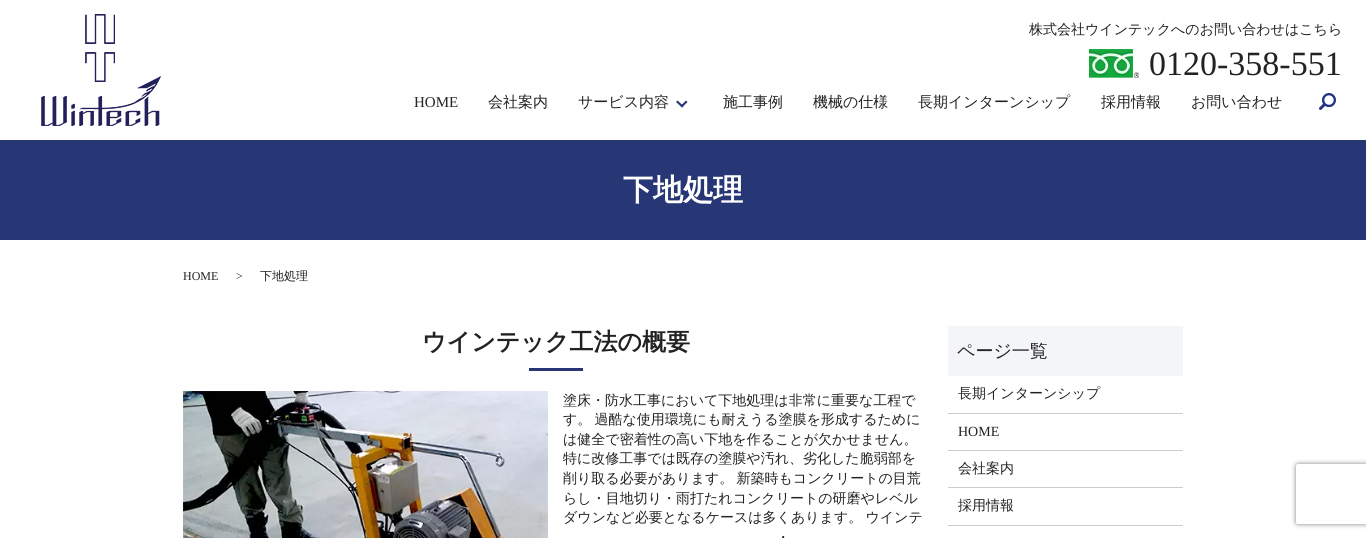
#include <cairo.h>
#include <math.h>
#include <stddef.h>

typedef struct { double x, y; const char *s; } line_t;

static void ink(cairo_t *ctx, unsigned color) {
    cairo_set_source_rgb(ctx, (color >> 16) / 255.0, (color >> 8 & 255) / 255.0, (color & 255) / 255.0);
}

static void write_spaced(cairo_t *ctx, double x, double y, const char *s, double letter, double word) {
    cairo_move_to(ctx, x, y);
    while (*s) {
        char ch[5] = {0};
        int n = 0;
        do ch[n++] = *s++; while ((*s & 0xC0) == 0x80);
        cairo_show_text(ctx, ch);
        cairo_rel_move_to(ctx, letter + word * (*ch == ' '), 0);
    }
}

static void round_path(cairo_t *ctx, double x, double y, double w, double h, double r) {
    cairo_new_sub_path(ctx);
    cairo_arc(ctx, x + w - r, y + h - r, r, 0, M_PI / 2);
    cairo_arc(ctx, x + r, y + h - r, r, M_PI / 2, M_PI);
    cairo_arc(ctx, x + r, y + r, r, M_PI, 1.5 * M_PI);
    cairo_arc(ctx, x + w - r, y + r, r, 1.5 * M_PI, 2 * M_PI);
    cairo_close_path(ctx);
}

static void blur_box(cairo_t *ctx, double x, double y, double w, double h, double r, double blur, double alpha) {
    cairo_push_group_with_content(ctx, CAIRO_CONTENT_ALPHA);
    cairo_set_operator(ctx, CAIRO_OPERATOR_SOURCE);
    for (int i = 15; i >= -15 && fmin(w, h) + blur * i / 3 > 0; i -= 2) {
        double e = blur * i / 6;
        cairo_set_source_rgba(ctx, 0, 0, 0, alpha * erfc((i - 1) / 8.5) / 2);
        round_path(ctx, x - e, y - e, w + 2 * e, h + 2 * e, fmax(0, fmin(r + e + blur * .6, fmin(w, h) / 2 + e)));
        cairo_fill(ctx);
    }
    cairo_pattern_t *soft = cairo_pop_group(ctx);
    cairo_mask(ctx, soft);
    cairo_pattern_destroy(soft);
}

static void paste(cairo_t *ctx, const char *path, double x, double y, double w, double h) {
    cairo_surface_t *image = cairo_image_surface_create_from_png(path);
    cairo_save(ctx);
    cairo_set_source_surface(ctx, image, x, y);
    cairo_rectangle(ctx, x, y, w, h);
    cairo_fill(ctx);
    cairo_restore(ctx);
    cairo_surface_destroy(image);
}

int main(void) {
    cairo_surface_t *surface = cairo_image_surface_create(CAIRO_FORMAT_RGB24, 1366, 538);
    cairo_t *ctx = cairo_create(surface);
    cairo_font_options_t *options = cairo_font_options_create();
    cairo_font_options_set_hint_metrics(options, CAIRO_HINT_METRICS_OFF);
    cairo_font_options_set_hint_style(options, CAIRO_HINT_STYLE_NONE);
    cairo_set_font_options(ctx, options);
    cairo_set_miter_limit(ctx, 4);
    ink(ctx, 0xFFFFFF);
    cairo_paint(ctx);
    paste(ctx, "media/1.png", 41, 14, 120, 112);
    cairo_select_font_face(ctx, "WenQuanYi Zen Hei Medium", CAIRO_FONT_SLANT_NORMAL, CAIRO_FONT_WEIGHT_NORMAL);
    cairo_set_font_size(ctx, 14);
    ink(ctx, 0x222222);
    cairo_move_to(ctx, 1029, 34);
    cairo_show_text(ctx, "株式会社ウインテックへのお問い合わせはこちら");
    paste(ctx, "media/2.png", 1089, 49, 50, 29);
    cairo_select_font_face(ctx, "Liberation Serif", CAIRO_FONT_SLANT_NORMAL, CAIRO_FONT_WEIGHT_NORMAL);
    cairo_set_font_size(ctx, 34);
    cairo_move_to(ctx, 1149, 75);
    cairo_show_text(ctx, "0120-358-551");
    cairo_set_font_size(ctx, 15);
    cairo_move_to(ctx, 414, 107);
    cairo_show_text(ctx, "HOME");
    cairo_select_font_face(ctx, "WenQuanYi Zen Hei Medium", CAIRO_FONT_SLANT_NORMAL, CAIRO_FONT_WEIGHT_NORMAL);
    cairo_move_to(ctx, 488, 107);
    cairo_show_text(ctx, "会社案内");
    cairo_move_to(ctx, 578, 107);
    cairo_show_text(ctx, "サービス内容");
    ink(ctx, 0x273675);
    cairo_new_path(ctx);
    cairo_move_to(ctx, 687.5, 102);
    cairo_line_to(ctx, 682, 107.5);
    cairo_line_to(ctx, 680.5, 106);
    cairo_line_to(ctx, 686, 100.5);
    cairo_close_path(ctx);
    cairo_fill(ctx);
    cairo_new_path(ctx);
    cairo_move_to(ctx, 683.5, 106);
    cairo_line_to(ctx, 682, 107.5);
    cairo_line_to(ctx, 676, 102);
    cairo_line_to(ctx, 677.5, 100.5);
    cairo_close_path(ctx);
    cairo_fill(ctx);
    ink(ctx, 0x222222);
    {
        static const line_t items[] = {
            {723, 107, "施工事例"},
            {813, 107, "機械の仕様"},
            {918, 107, "長期インターンシップ"},
            {1101, 107, "採用情報"},
            {1191, 107, "お問い合わせ"},
        };
        for (size_t i = 0; i < sizeof items / sizeof *items; i++) {
            cairo_move_to(ctx, items[i].x, items[i].y);
            cairo_show_text(ctx, items[i].s);
        }
    }
    paste(ctx, "media/3.png", 1319, 93, 17, 17);
    ink(ctx, 0x273675);
    cairo_rectangle(ctx, 0, 140, 1366, 100);
    cairo_fill(ctx);
    cairo_select_font_face(ctx, "WenQuanYi Zen Hei", CAIRO_FONT_SLANT_NORMAL, CAIRO_FONT_WEIGHT_BOLD);
    cairo_set_font_size(ctx, 30);
    ink(ctx, 0xFFFFFF);
    cairo_move_to(ctx, 623, 200);
    cairo_show_text(ctx, "下地処理");
    cairo_select_font_face(ctx, "Liberation Serif", CAIRO_FONT_SLANT_NORMAL, CAIRO_FONT_WEIGHT_NORMAL);
    cairo_set_font_size(ctx, 12);
    ink(ctx, 0x222222);
    cairo_move_to(ctx, 183, 280);
    cairo_show_text(ctx, "HOME");
    cairo_move_to(ctx, 236, 280);
    cairo_show_text(ctx, ">");
    cairo_select_font_face(ctx, "WenQuanYi Zen Hei Medium", CAIRO_FONT_SLANT_NORMAL, CAIRO_FONT_WEIGHT_NORMAL);
    cairo_move_to(ctx, 260, 280);
    cairo_show_text(ctx, "下地処理");
    cairo_select_font_face(ctx, "WenQuanYi Zen Hei", CAIRO_FONT_SLANT_NORMAL, CAIRO_FONT_WEIGHT_BOLD);
    cairo_set_font_size(ctx, 24);
    cairo_move_to(ctx, 422, 350);
    cairo_show_text(ctx, "ウインテック工法の概要");
    ink(ctx, 0x273675);
    cairo_rectangle(ctx, 529, 368, 54, 3);
    cairo_fill(ctx);
    paste(ctx, "media/4.png", 183, 391, 365, 147);
    cairo_select_font_face(ctx, "WenQuanYi Zen Hei Medium", CAIRO_FONT_SLANT_NORMAL, CAIRO_FONT_WEIGHT_NORMAL);
    cairo_set_font_size(ctx, 14);
    ink(ctx, 0x222222);
    cairo_move_to(ctx, 563, 405);
    cairo_show_text(ctx, "塗床・防水工事において下地処理は非常に重要な工程で");
    write_spaced(ctx, 563, 424, "す。 過酷な使用環境にも耐えうる塗膜を形成するために", 0, -1);
    cairo_move_to(ctx, 563, 444);
    cairo_show_text(ctx, "は健全で密着性の高い下地を作ることが欠かせません。");
    cairo_move_to(ctx, 563, 463);
    cairo_show_text(ctx, "特に改修工事では既存の塗膜や汚れ、劣化した脆弱部を");
    write_spaced(ctx, 563, 483, "削り取る必要があります。 新築時もコンクリートの目荒", 0, -1);
    cairo_move_to(ctx, 563, 503);
    cairo_show_text(ctx, "らし・目地切り・雨打たれコンクリートの研磨やレベル");
    write_spaced(ctx, 563, 522, "ダウンなど必要となるケースは多くあります。 ウインテ", 0, -1);
    cairo_move_to(ctx, 776, 542);
    cairo_show_text(ctx, "・");
    ink(ctx, 0xF4F5F8);
    cairo_rectangle(ctx, 948, 326, 235, 50);
    cairo_fill(ctx);
    cairo_set_font_size(ctx, 18);
    ink(ctx, 0x222222);
    cairo_move_to(ctx, 957, 357);
    cairo_show_text(ctx, "ページ一覧");
    ink(ctx, 0xCCCCCC);
    cairo_rectangle(ctx, 948, 413, 235, 1);
    cairo_fill(ctx);
    cairo_set_font_size(ctx, 14);
    ink(ctx, 0x222222);
    cairo_move_to(ctx, 958, 398);
    cairo_show_text(ctx, "長期インターンシップ");
    ink(ctx, 0xCCCCCC);
    cairo_rectangle(ctx, 948, 450, 235, 1);
    cairo_fill(ctx);
    cairo_select_font_face(ctx, "Liberation Serif", CAIRO_FONT_SLANT_NORMAL, CAIRO_FONT_WEIGHT_NORMAL);
    ink(ctx, 0x222222);
    cairo_move_to(ctx, 958, 436);
    cairo_show_text(ctx, "HOME");
    ink(ctx, 0xCCCCCC);
    cairo_rectangle(ctx, 948, 487, 235, 1);
    cairo_fill(ctx);
    cairo_select_font_face(ctx, "WenQuanYi Zen Hei Medium", CAIRO_FONT_SLANT_NORMAL, CAIRO_FONT_WEIGHT_NORMAL);
    ink(ctx, 0x222222);
    cairo_move_to(ctx, 958, 473);
    cairo_show_text(ctx, "会社案内");
    ink(ctx, 0xCCCCCC);
    cairo_rectangle(ctx, 948, 525, 235, 1);
    cairo_fill(ctx);
    ink(ctx, 0x222222);
    cairo_move_to(ctx, 958, 510);
    cairo_show_text(ctx, "採用情報");
    cairo_save(ctx);
    cairo_set_fill_rule(ctx, CAIRO_FILL_RULE_EVEN_ODD);
    cairo_new_path(ctx);
    cairo_move_to(ctx, 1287, 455);
    cairo_line_to(ctx, 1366, 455);
    cairo_line_to(ctx, 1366, 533);
    cairo_line_to(ctx, 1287, 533);
    cairo_close_path(ctx);
    cairo_move_to(ctx, 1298, 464);
    cairo_line_to(ctx, 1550, 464);
    cairo_curve_to(ctx, 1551, 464, 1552, 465, 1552, 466);
    cairo_line_to(ctx, 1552, 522);
    cairo_curve_to(ctx, 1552, 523, 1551, 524, 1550, 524);
    cairo_line_to(ctx, 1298, 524);
    cairo_curve_to(ctx, 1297, 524, 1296, 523, 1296, 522);
    cairo_line_to(ctx, 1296, 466);
    cairo_curve_to(ctx, 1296, 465, 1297, 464, 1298, 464);
    cairo_close_path(ctx);
    cairo_clip(ctx);
    ink(ctx, 0x808080);
    blur_box(ctx, 1296, 464, 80, 60, 2, 2.5, 1);
    cairo_restore(ctx);
    cairo_surface_write_to_png(surface, "image.png");
    cairo_font_options_destroy(options);
    cairo_destroy(ctx);
    cairo_surface_destroy(surface);
    return 0;
}
